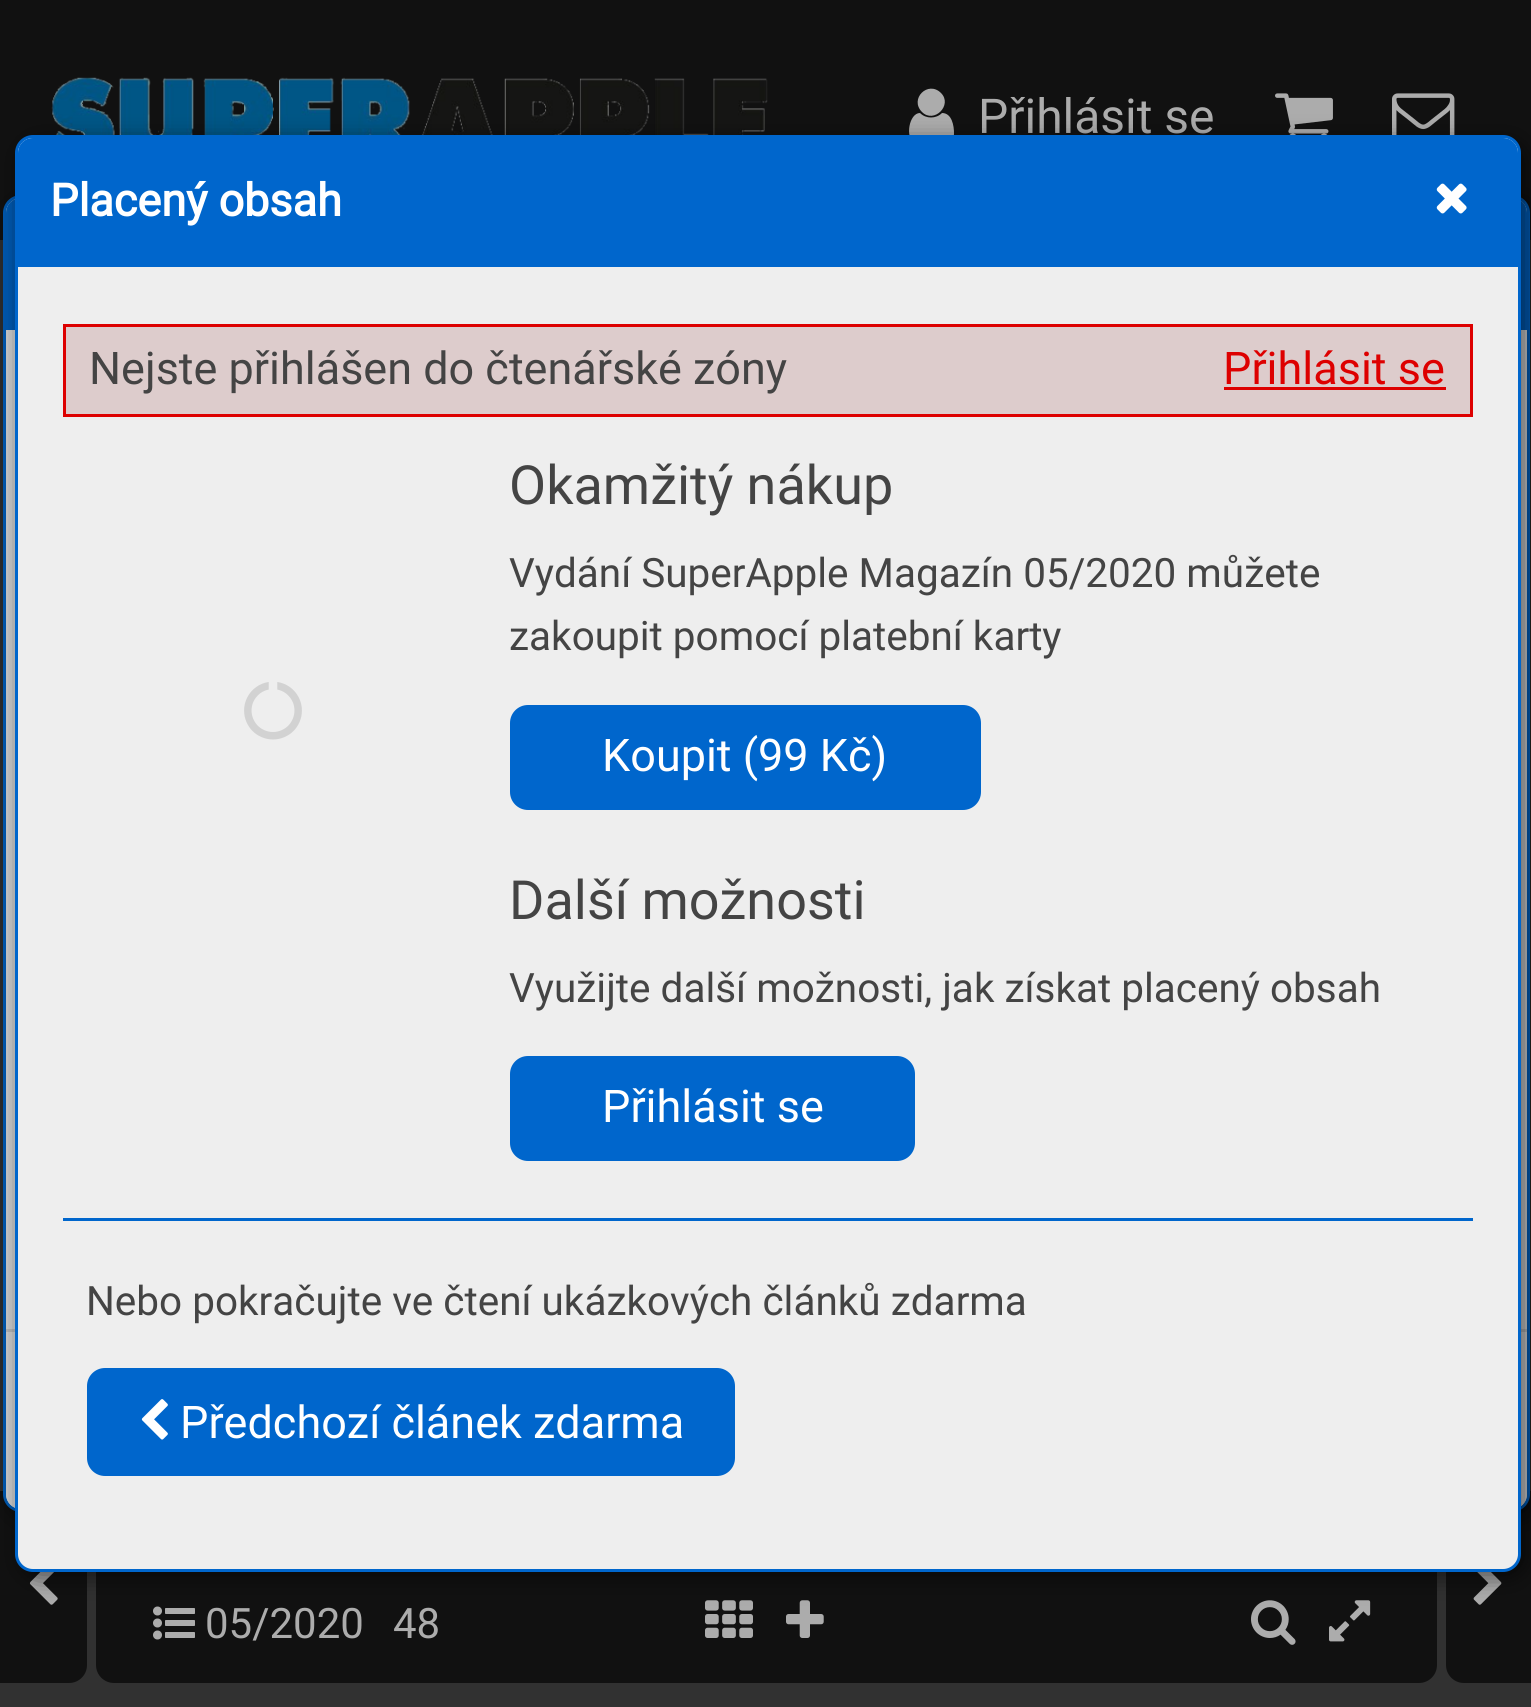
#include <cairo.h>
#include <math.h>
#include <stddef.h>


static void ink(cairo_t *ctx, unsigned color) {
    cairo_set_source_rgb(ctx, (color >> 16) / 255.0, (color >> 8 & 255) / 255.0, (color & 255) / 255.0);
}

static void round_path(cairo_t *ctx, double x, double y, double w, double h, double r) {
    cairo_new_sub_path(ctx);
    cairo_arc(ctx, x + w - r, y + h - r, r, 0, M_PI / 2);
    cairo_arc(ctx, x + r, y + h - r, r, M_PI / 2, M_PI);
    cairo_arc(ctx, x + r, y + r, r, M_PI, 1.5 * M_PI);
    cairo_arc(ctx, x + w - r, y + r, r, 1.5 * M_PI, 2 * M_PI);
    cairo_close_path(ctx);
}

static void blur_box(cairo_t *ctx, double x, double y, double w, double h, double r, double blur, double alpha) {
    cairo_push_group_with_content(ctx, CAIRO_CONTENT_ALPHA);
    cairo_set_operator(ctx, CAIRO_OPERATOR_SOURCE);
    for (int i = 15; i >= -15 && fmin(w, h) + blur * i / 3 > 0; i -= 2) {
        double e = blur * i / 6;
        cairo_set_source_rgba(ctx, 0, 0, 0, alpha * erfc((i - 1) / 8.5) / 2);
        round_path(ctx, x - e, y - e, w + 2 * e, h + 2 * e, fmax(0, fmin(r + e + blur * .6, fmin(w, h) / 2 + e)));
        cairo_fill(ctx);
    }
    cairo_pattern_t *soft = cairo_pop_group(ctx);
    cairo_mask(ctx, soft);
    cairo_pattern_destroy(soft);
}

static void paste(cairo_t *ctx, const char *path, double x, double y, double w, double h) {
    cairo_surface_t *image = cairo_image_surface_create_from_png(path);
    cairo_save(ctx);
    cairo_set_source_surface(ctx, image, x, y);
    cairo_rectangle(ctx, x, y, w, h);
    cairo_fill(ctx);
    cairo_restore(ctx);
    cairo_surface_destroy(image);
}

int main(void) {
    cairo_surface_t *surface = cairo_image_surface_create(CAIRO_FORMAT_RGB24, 1531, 1707);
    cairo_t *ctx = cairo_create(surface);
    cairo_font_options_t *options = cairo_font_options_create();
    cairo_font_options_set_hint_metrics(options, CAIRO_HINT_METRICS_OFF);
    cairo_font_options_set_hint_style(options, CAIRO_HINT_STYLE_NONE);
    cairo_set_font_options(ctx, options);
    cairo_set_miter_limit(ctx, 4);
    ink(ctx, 0x313131);
    cairo_paint(ctx);
    ink(ctx, 0x111111);
    cairo_rectangle(ctx, 0, 0, 1531, 240);
    cairo_fill(ctx);
    paste(ctx, "media/1.png", 51, 77, 717, 58);
    ink(ctx, 0xACACAC);
    cairo_new_path(ctx);
    cairo_move_to(ctx, 954, 133);
    cairo_curve_to(ctx, 954, 142, 948, 142, 941, 142);
    cairo_line_to(ctx, 914, 142);
    cairo_curve_to(ctx, 905, 138, 909, 113, 920, 113);
    cairo_curve_to(ctx, 926, 119, 936, 119, 942, 113);
    cairo_curve_to(ctx, 952, 113, 954, 126, 954, 133);
    cairo_close_path(ctx);
    cairo_move_to(ctx, 941, 93);
    cairo_curve_to(ctx, 953, 105, 934, 124, 922, 112);
    cairo_curve_to(ctx, 909, 99, 928, 80, 941, 93);
    cairo_close_path(ctx);
    cairo_fill(ctx);
    cairo_select_font_face(ctx, "Roboto", CAIRO_FONT_SLANT_NORMAL, CAIRO_FONT_WEIGHT_NORMAL);
    cairo_set_font_size(ctx, 48);
    cairo_move_to(ctx, 978, 133);
    cairo_show_text(ctx, "Přihlásit se");
    paste(ctx, "media/2.png", 1275, 93, 58, 42);
    paste(ctx, "media/3.png", 1392, 93, 63, 42);
    ink(ctx, 0x111111);
    cairo_new_path(ctx);
    cairo_move_to(ctx, 0, 1491);
    cairo_line_to(ctx, 69, 1491);
    cairo_curve_to(ctx, 79, 1491, 87, 1499, 87, 1509);
    cairo_line_to(ctx, 87, 1665);
    cairo_curve_to(ctx, 87, 1675, 79, 1683, 69, 1683);
    cairo_line_to(ctx, 0, 1683);
    cairo_close_path(ctx);
    cairo_fill(ctx);
    paste(ctx, "media/4.png", 29, 1572, 29, 33);
    round_path(ctx, 96, 1491, 1341, 192, 18);
    cairo_fill(ctx);
    paste(ctx, "media/5.png", 153, 1606, 42, 34);
    cairo_set_font_size(ctx, 42);
    ink(ctx, 0xACACAC);
    cairo_move_to(ctx, 205, 1638);
    cairo_show_text(ctx, "05/2020");
    cairo_move_to(ctx, 393, 1638);
    cairo_show_text(ctx, "48");
    paste(ctx, "media/6.png", 705, 1600, 48, 38);
    paste(ctx, "media/7.png", 786, 1600, 38, 38);
    paste(ctx, "media/8.png", 1251, 1600, 45, 45);
    paste(ctx, "media/9.png", 1329, 1600, 42, 42);
    ink(ctx, 0x111111);
    cairo_new_path(ctx);
    cairo_move_to(ctx, 1464, 1491);
    cairo_line_to(ctx, 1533, 1491);
    cairo_line_to(ctx, 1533, 1683);
    cairo_line_to(ctx, 1464, 1683);
    cairo_curve_to(ctx, 1454, 1683, 1446, 1675, 1446, 1665);
    cairo_line_to(ctx, 1446, 1509);
    cairo_curve_to(ctx, 1446, 1499, 1454, 1491, 1464, 1491);
    cairo_close_path(ctx);
    cairo_fill(ctx);
    paste(ctx, "media/10.png", 1473, 1572, 29, 33);
    ink(ctx, 0x000000);
    blur_box(ctx, 9, 201, 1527, 1317, 18, 11, 0.53);
    ink(ctx, 0xCACACA);
    round_path(ctx, 4.5, 196.5, 1524, 1314, 16.5);
    cairo_fill_preserve(ctx);
    ink(ctx, 0x0057AD);
    cairo_set_line_width(ctx, 3);
    cairo_stroke(ctx);
    cairo_new_path(ctx);
    cairo_move_to(ctx, 21, 198);
    cairo_line_to(ctx, 1512, 198);
    cairo_curve_to(ctx, 1520.5, 198, 1527, 204.5, 1527, 213);
    cairo_line_to(ctx, 1527, 330);
    cairo_line_to(ctx, 6, 330);
    cairo_line_to(ctx, 6, 213);
    cairo_curve_to(ctx, 6, 204.5, 12.5, 198, 21, 198);
    cairo_close_path(ctx);
    cairo_fill(ctx);
    ink(ctx, 0xCACACA);
    cairo_new_path(ctx);
    cairo_move_to(ctx, 6, 1329);
    cairo_line_to(ctx, 1527, 1329);
    cairo_line_to(ctx, 1527, 1494);
    cairo_curve_to(ctx, 1527, 1502.5, 1520.5, 1509, 1512, 1509);
    cairo_line_to(ctx, 21, 1509);
    cairo_curve_to(ctx, 12.5, 1509, 6, 1502.5, 6, 1494);
    cairo_close_path(ctx);
    cairo_fill(ctx);
    ink(ctx, 0xB3B3B3);
    cairo_rectangle(ctx, 6, 1329, 1521, 3);
    cairo_fill(ctx);
    ink(ctx, 0x000000);
    blur_box(ctx, 21, 141, 1506, 1437, 18, 11, 0.53);
    ink(ctx, 0xEEEEEE);
    round_path(ctx, 16.5, 136.5, 1503, 1434, 16.5);
    cairo_fill_preserve(ctx);
    ink(ctx, 0x0066CC);
    cairo_stroke(ctx);
    cairo_new_path(ctx);
    cairo_move_to(ctx, 33, 138);
    cairo_line_to(ctx, 1503, 138);
    cairo_curve_to(ctx, 1511.5, 138, 1518, 144.5, 1518, 153);
    cairo_line_to(ctx, 1518, 267);
    cairo_line_to(ctx, 18, 267);
    cairo_line_to(ctx, 18, 153);
    cairo_curve_to(ctx, 18, 144.5, 24.5, 138, 33, 138);
    cairo_close_path(ctx);
    cairo_fill(ctx);
    cairo_select_font_face(ctx, "Roboto", CAIRO_FONT_SLANT_NORMAL, CAIRO_FONT_WEIGHT_BOLD);
    cairo_set_font_size(ctx, 45);
    ink(ctx, 0xFFFFFF);
    cairo_move_to(ctx, 50, 216);
    cairo_show_text(ctx, "Placený obsah");
    paste(ctx, "media/11.png", 1436, 183, 31, 31);
    ink(ctx, 0xDDCCCC);
    cairo_rectangle(ctx, 64.5, 325.5, 1407, 90);
    cairo_fill_preserve(ctx);
    ink(ctx, 0xDD0000);
    cairo_stroke(ctx);
    cairo_select_font_face(ctx, "Roboto", CAIRO_FONT_SLANT_NORMAL, CAIRO_FONT_WEIGHT_NORMAL);
    ink(ctx, 0x444444);
    cairo_move_to(ctx, 89, 384);
    cairo_show_text(ctx, "Nejste přihlášen do čtenářské zóny");
    ink(ctx, 0xDD0000);
    cairo_move_to(ctx, 1223, 384);
    cairo_show_text(ctx, "Přihlásit se");
    cairo_rectangle(ctx, 1224, 387, 222, 3);
    cairo_fill(ctx);
    paste(ctx, "media/12.png", 244, 682, 58, 58);
    cairo_set_font_size(ctx, 54);
    ink(ctx, 0x444444);
    cairo_move_to(ctx, 509, 504);
    cairo_show_text(ctx, "Okamžitý nákup");
    cairo_set_font_size(ctx, 40.5);
    cairo_move_to(ctx, 509, 587);
    cairo_show_text(ctx, "Vydání SuperApple Magazín 05/2020 můžete");
    cairo_move_to(ctx, 509, 650);
    cairo_show_text(ctx, "zakoupit pomocí platební karty");
    ink(ctx, 0x0066CC);
    round_path(ctx, 511.5, 706.5, 468, 102, 16.5);
    cairo_fill_preserve(ctx);
    cairo_stroke(ctx);
    cairo_set_font_size(ctx, 45);
    ink(ctx, 0xFFFFFF);
    cairo_move_to(ctx, 602, 771);
    cairo_show_text(ctx, "Koupit (99 Kč)");
    cairo_set_font_size(ctx, 54);
    ink(ctx, 0x444444);
    cairo_move_to(ctx, 509, 919);
    cairo_show_text(ctx, "Další možnosti");
    cairo_set_font_size(ctx, 40.5);
    cairo_move_to(ctx, 509, 1002);
    cairo_show_text(ctx, "Využijte další možnosti, jak získat placený obsah");
    ink(ctx, 0x0066CC);
    round_path(ctx, 511.5, 1057.5, 402, 102, 16.5);
    cairo_fill_preserve(ctx);
    cairo_stroke(ctx);
    cairo_set_font_size(ctx, 45);
    ink(ctx, 0xFFFFFF);
    cairo_move_to(ctx, 602, 1122);
    cairo_show_text(ctx, "Přihlásit se");
    ink(ctx, 0x0066CC);
    cairo_rectangle(ctx, 63, 1218, 1410, 3);
    cairo_fill(ctx);
    cairo_set_font_size(ctx, 40.5);
    ink(ctx, 0x444444);
    cairo_move_to(ctx, 86, 1315);
    cairo_show_text(ctx, "Nebo pokračujte ve čtení ukázkových článků zdarma");
    ink(ctx, 0x0066CC);
    round_path(ctx, 88.5, 1369.5, 645, 105, 16.5);
    cairo_fill_preserve(ctx);
    cairo_stroke(ctx);
    paste(ctx, "media/13.png", 141, 1399, 27, 41);
    cairo_set_font_size(ctx, 45);
    ink(ctx, 0xFFFFFF);
    cairo_move_to(ctx, 180, 1438);
    cairo_show_text(ctx, "Předchozí článek zdarma");
    cairo_surface_write_to_png(surface, "image.png");
    cairo_font_options_destroy(options);
    cairo_destroy(ctx);
    cairo_surface_destroy(surface);
    return 0;
}
